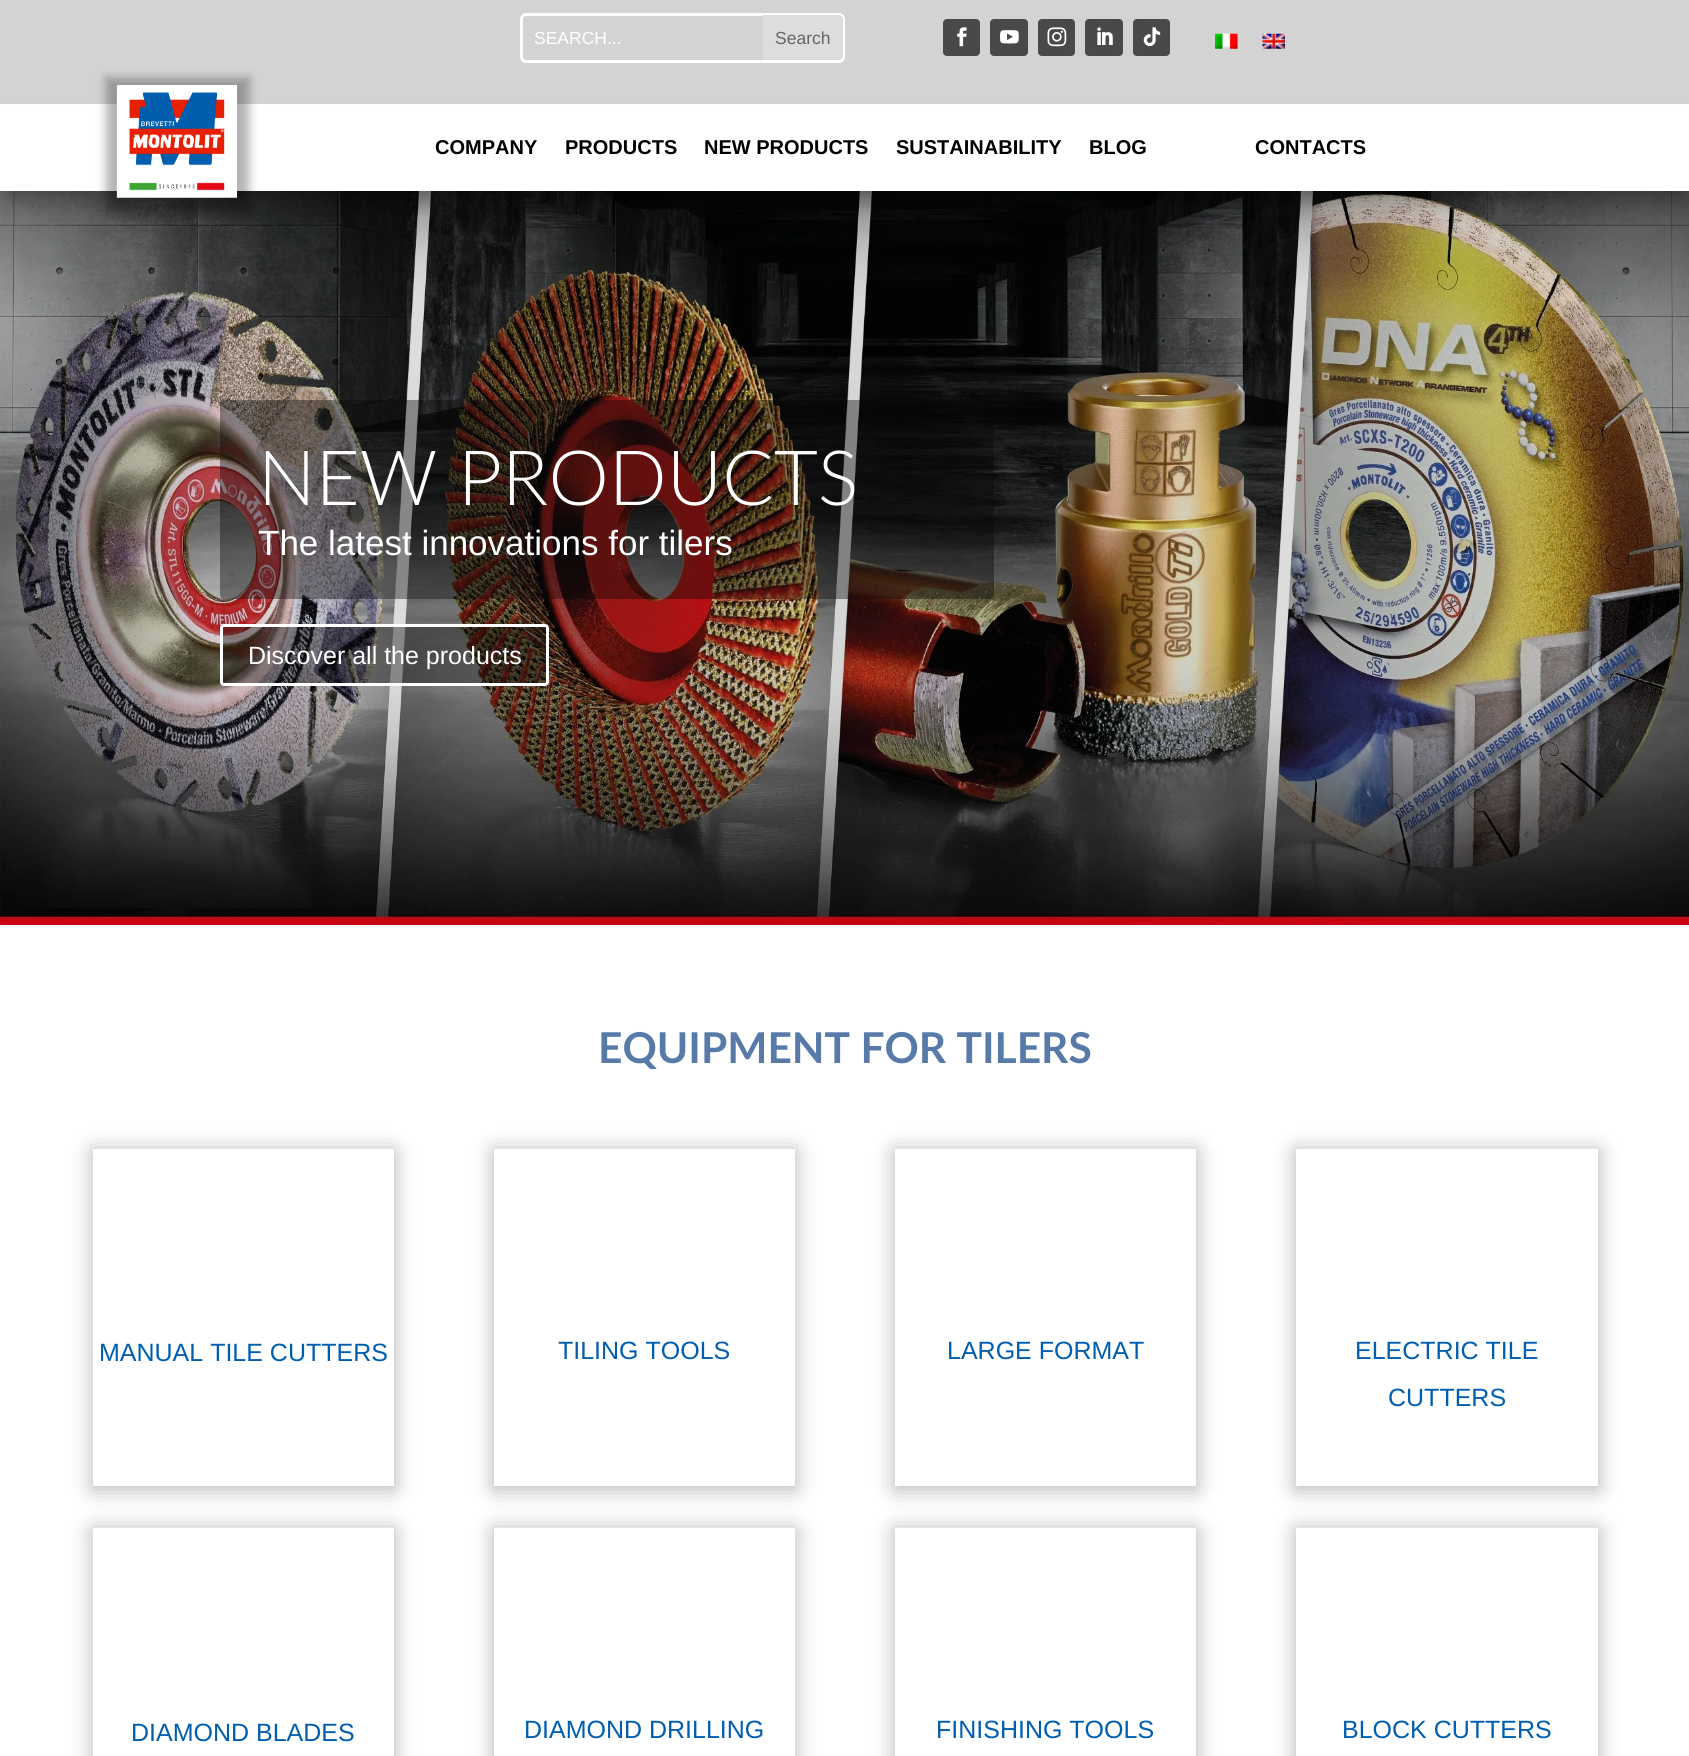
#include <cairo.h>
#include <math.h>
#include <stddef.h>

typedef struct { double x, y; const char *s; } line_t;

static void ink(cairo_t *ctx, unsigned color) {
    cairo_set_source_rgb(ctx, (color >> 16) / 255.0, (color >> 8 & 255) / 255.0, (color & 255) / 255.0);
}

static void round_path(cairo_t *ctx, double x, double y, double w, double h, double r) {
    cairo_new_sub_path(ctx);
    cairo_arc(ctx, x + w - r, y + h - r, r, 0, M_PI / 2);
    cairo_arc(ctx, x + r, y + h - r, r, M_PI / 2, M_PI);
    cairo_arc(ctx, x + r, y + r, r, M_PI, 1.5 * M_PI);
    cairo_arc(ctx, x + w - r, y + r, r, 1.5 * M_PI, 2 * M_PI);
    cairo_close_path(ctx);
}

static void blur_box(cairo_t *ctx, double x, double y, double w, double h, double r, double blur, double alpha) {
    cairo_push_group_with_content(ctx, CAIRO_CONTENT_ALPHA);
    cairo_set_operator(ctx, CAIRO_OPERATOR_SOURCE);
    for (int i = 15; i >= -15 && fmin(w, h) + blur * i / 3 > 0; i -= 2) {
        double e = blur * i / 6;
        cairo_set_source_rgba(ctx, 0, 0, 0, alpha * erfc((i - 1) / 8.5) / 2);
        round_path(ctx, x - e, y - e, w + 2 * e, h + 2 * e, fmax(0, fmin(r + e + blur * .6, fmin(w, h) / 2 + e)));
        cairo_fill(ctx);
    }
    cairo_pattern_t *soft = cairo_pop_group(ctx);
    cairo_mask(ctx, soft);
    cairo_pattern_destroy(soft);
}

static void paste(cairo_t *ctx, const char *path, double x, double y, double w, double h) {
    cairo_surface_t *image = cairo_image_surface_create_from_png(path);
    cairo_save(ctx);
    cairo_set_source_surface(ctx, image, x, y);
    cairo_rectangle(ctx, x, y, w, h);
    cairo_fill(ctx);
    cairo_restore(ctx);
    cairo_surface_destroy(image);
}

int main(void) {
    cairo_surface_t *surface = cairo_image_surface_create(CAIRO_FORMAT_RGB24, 1689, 1756);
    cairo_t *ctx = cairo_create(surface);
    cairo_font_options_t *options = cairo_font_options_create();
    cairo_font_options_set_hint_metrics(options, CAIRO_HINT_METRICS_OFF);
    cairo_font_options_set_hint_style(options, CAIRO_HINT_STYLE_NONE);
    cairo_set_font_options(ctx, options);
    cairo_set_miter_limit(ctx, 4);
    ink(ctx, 0xFFFFFF);
    cairo_paint(ctx);
    ink(ctx, 0xD3D3D3);
    cairo_rectangle(ctx, 0, 0, 1689, 104);
    cairo_fill(ctx);
    round_path(ctx, 521.5, 14.5, 322, 47, 4.5);
    ink(ctx, 0xFFFFFF);
    cairo_set_line_width(ctx, 3);
    cairo_stroke(ctx);
    cairo_select_font_face(ctx, "Liberation Sans", CAIRO_FONT_SLANT_NORMAL, CAIRO_FONT_WEIGHT_NORMAL);
    cairo_set_font_size(ctx, 17.5);
    cairo_move_to(ctx, 534, 44);
    cairo_show_text(ctx, "SEARCH...");
    ink(ctx, 0xDDDDDD);
    cairo_new_path(ctx);
    cairo_move_to(ctx, 763, 15);
    cairo_line_to(ctx, 839, 15);
    cairo_curve_to(ctx, 841, 15, 843, 17, 843, 19);
    cairo_line_to(ctx, 843, 56);
    cairo_curve_to(ctx, 843, 58, 841, 60, 839, 60);
    cairo_line_to(ctx, 763, 60);
    cairo_close_path(ctx);
    cairo_fill(ctx);
    ink(ctx, 0x666666);
    cairo_move_to(ctx, 775, 44);
    cairo_show_text(ctx, "Search");
    ink(ctx, 0x494949);
    round_path(ctx, 943, 19, 37, 37, 4);
    cairo_fill(ctx);
    paste(ctx, "media/1.png", 957, 27, 10, 20);
    round_path(ctx, 990, 19, 38, 37, 4);
    cairo_fill(ctx);
    paste(ctx, "media/2.png", 1000, 30, 19, 14);
    round_path(ctx, 1038, 19, 37, 37, 4);
    cairo_fill(ctx);
    paste(ctx, "media/3.png", 1047, 27, 20, 20);
    round_path(ctx, 1085, 19, 38, 37, 4);
    cairo_fill(ctx);
    paste(ctx, "media/4.png", 1097, 27, 16, 18);
    round_path(ctx, 1133, 19, 37, 37, 4);
    cairo_fill(ctx);
    paste(ctx, "media/5.png", 1143, 27, 18, 20);
    paste(ctx, "media/6.png", 1215, 33, 23, 16);
    paste(ctx, "media/7.png", 1262, 33, 23, 16);
    paste(ctx, "media/9.png", 0, 191, 1689, 734);
    ink(ctx, 0x000000);
    blur_box(ctx, 8, 126, 1675, 73, 0, 11, 0.3);
    ink(ctx, 0xFFFFFF);
    cairo_rectangle(ctx, 0, 106, 1689, 85);
    cairo_fill(ctx);
    ink(ctx, 0x000000);
    blur_box(ctx, 106, 78, 143, 135, 0, 5, 0.3);
    paste(ctx, "media/8.png", 116, 85, 121, 113);
    cairo_select_font_face(ctx, "Liberation Sans", CAIRO_FONT_SLANT_NORMAL, CAIRO_FONT_WEIGHT_BOLD);
    cairo_set_font_size(ctx, 20);
    ink(ctx, 0x000000);
    {
        static const line_t items[] = {
            {435, 154, "COMPANY"},
            {565, 154, "PRODUCTS"},
            {704, 154, "NEW PRODUCTS"},
            {896, 154, "SUSTAINABILITY"},
            {1089, 154, "BLOG"},
            {1255, 154, "CONTACTS"},
        };
        for (size_t i = 0; i < sizeof items / sizeof *items; i++) {
            cairo_move_to(ctx, items[i].x, items[i].y);
            cairo_show_text(ctx, items[i].s);
        }
    }
    cairo_set_source_rgba(ctx, 0.039, 0.039, 0.039, 0.4);
    round_path(ctx, 220, 400, 774, 199, 4);
    cairo_fill(ctx);
    cairo_select_font_face(ctx, "Lato Light", CAIRO_FONT_SLANT_NORMAL, CAIRO_FONT_WEIGHT_NORMAL);
    cairo_set_font_size(ctx, 76.25);
    ink(ctx, 0xFFFFFF);
    cairo_move_to(ctx, 258, 505);
    cairo_show_text(ctx, "NEW PRODUCTS");
    cairo_select_font_face(ctx, "Liberation Sans", CAIRO_FONT_SLANT_NORMAL, CAIRO_FONT_WEIGHT_NORMAL);
    cairo_set_font_size(ctx, 35);
    cairo_move_to(ctx, 258, 555);
    cairo_show_text(ctx, "The latest innovations for tilers");
    cairo_set_source_rgba(ctx, 0.039, 0.039, 0.039, 0.4);
    round_path(ctx, 221.5, 625.5, 326, 59, 2.5);
    cairo_fill_preserve(ctx);
    ink(ctx, 0xFFFFFF);
    cairo_stroke(ctx);
    cairo_set_font_size(ctx, 25);
    cairo_move_to(ctx, 248, 664);
    cairo_show_text(ctx, "Discover all the products");
    cairo_select_font_face(ctx, "Lato", CAIRO_FONT_SLANT_NORMAL, CAIRO_FONT_WEIGHT_BOLD);
    cairo_set_font_size(ctx, 42.5);
    ink(ctx, 0x577AA8);
    cairo_move_to(ctx, 598, 1063);
    cairo_show_text(ctx, "EQUIPMENT FOR TILERS");
    ink(ctx, 0x000000);
    blur_box(ctx, 93, 1151, 301, 338, 0, 11, 0.3);
    ink(ctx, 0xFFFFFF);
    cairo_rectangle(ctx, 93, 1149, 301, 337);
    cairo_fill(ctx);
    cairo_select_font_face(ctx, "Liberation Sans", CAIRO_FONT_SLANT_NORMAL, CAIRO_FONT_WEIGHT_NORMAL);
    cairo_set_font_size(ctx, 25);
    ink(ctx, 0x005EAF);
    cairo_move_to(ctx, 99, 1361);
    cairo_show_text(ctx, "MANUAL TILE CUTTERS");
    ink(ctx, 0x000000);
    blur_box(ctx, 93, 1530, 301, 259, 0, 11, 0.3);
    ink(ctx, 0xFFFFFF);
    cairo_rectangle(ctx, 93, 1528, 301, 228);
    cairo_fill(ctx);
    ink(ctx, 0x005EAF);
    cairo_move_to(ctx, 131, 1741);
    cairo_show_text(ctx, "DIAMOND BLADES");
    cairo_save(ctx);
    cairo_set_fill_rule(ctx, CAIRO_FILL_RULE_EVEN_ODD);
    cairo_new_path(ctx);
    cairo_move_to(ctx, 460, 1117);
    cairo_line_to(ctx, 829, 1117);
    cairo_line_to(ctx, 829, 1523);
    cairo_line_to(ctx, 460, 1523);
    cairo_close_path(ctx);
    cairo_move_to(ctx, 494, 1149);
    cairo_line_to(ctx, 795, 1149);
    cairo_line_to(ctx, 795, 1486);
    cairo_line_to(ctx, 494, 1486);
    cairo_close_path(ctx);
    cairo_clip(ctx);
    ink(ctx, 0x000000);
    blur_box(ctx, 494, 1151, 301, 338, 0, 11, 0.3);
    cairo_restore(ctx);
    cairo_move_to(ctx, 558, 1359);
    cairo_show_text(ctx, "TILING TOOLS");
    cairo_save(ctx);
    cairo_set_fill_rule(ctx, CAIRO_FILL_RULE_EVEN_ODD);
    cairo_new_path(ctx);
    cairo_move_to(ctx, 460, 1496);
    cairo_line_to(ctx, 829, 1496);
    cairo_line_to(ctx, 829, 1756);
    cairo_line_to(ctx, 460, 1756);
    cairo_close_path(ctx);
    cairo_move_to(ctx, 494, 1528);
    cairo_line_to(ctx, 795, 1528);
    cairo_line_to(ctx, 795, 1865);
    cairo_line_to(ctx, 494, 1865);
    cairo_close_path(ctx);
    cairo_clip(ctx);
    ink(ctx, 0x000000);
    blur_box(ctx, 494, 1530, 301, 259, 0, 11, 0.3);
    cairo_restore(ctx);
    cairo_move_to(ctx, 524, 1738);
    cairo_show_text(ctx, "DIAMOND DRILLING");
    cairo_save(ctx);
    cairo_set_fill_rule(ctx, CAIRO_FILL_RULE_EVEN_ODD);
    cairo_new_path(ctx);
    cairo_move_to(ctx, 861, 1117);
    cairo_line_to(ctx, 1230, 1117);
    cairo_line_to(ctx, 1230, 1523);
    cairo_line_to(ctx, 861, 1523);
    cairo_close_path(ctx);
    cairo_move_to(ctx, 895, 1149);
    cairo_line_to(ctx, 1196, 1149);
    cairo_line_to(ctx, 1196, 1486);
    cairo_line_to(ctx, 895, 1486);
    cairo_close_path(ctx);
    cairo_clip(ctx);
    ink(ctx, 0x000000);
    blur_box(ctx, 895, 1151, 301, 338, 0, 11, 0.3);
    cairo_restore(ctx);
    cairo_move_to(ctx, 947, 1359);
    cairo_show_text(ctx, "LARGE FORMAT");
    cairo_save(ctx);
    cairo_set_fill_rule(ctx, CAIRO_FILL_RULE_EVEN_ODD);
    cairo_new_path(ctx);
    cairo_move_to(ctx, 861, 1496);
    cairo_line_to(ctx, 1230, 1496);
    cairo_line_to(ctx, 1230, 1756);
    cairo_line_to(ctx, 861, 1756);
    cairo_close_path(ctx);
    cairo_move_to(ctx, 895, 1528);
    cairo_line_to(ctx, 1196, 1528);
    cairo_line_to(ctx, 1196, 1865);
    cairo_line_to(ctx, 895, 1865);
    cairo_close_path(ctx);
    cairo_clip(ctx);
    ink(ctx, 0x000000);
    blur_box(ctx, 895, 1530, 301, 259, 0, 11, 0.3);
    cairo_restore(ctx);
    cairo_move_to(ctx, 936, 1738);
    cairo_show_text(ctx, "FINISHING TOOLS");
    ink(ctx, 0x000000);
    blur_box(ctx, 1296, 1151, 302, 338, 0, 11, 0.3);
    ink(ctx, 0xFFFFFF);
    cairo_rectangle(ctx, 1296, 1149, 302, 337);
    cairo_fill(ctx);
    ink(ctx, 0x005EAF);
    cairo_move_to(ctx, 1355, 1359);
    cairo_show_text(ctx, "ELECTRIC TILE");
    cairo_move_to(ctx, 1388, 1406);
    cairo_show_text(ctx, "CUTTERS");
    ink(ctx, 0x000000);
    blur_box(ctx, 1296, 1530, 302, 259, 0, 11, 0.3);
    ink(ctx, 0xFFFFFF);
    cairo_rectangle(ctx, 1296, 1528, 302, 228);
    cairo_fill(ctx);
    ink(ctx, 0x005EAF);
    cairo_move_to(ctx, 1342, 1738);
    cairo_show_text(ctx, "BLOCK CUTTERS");
    cairo_surface_write_to_png(surface, "image.png");
    cairo_font_options_destroy(options);
    cairo_destroy(ctx);
    cairo_surface_destroy(surface);
    return 0;
}
